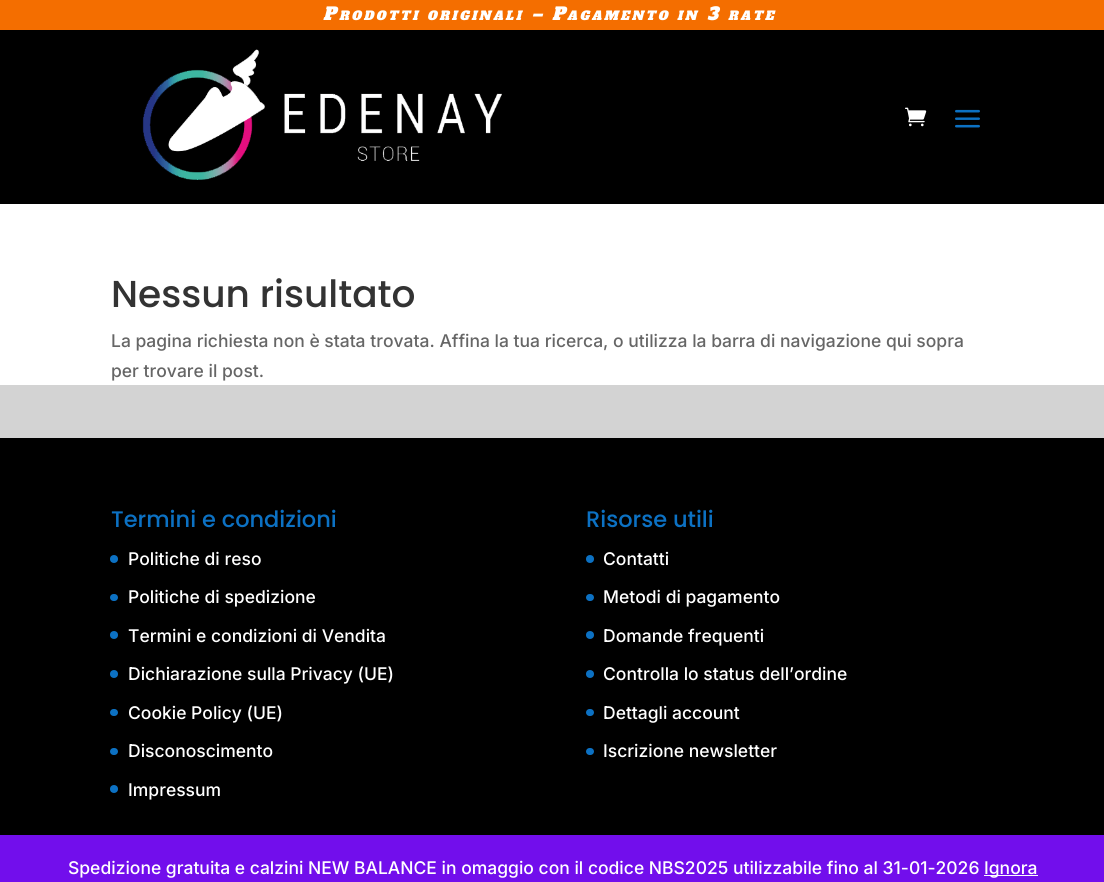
#include <cairo.h>
#include <math.h>
#include <stddef.h>


static void ink(cairo_t *ctx, unsigned color) {
    cairo_set_source_rgb(ctx, (color >> 16) / 255.0, (color >> 8 & 255) / 255.0, (color & 255) / 255.0);
}

static void write_spaced(cairo_t *ctx, double x, double y, const char *s, double letter, double word) {
    cairo_move_to(ctx, x, y);
    while (*s) {
        char ch[5] = {0};
        int n = 0;
        do ch[n++] = *s++; while ((*s & 0xC0) == 0x80);
        cairo_show_text(ctx, ch);
        cairo_rel_move_to(ctx, letter + word * (*ch == ' '), 0);
    }
}

static void round_path(cairo_t *ctx, double x, double y, double w, double h, double r) {
    cairo_new_sub_path(ctx);
    cairo_arc(ctx, x + w - r, y + h - r, r, 0, M_PI / 2);
    cairo_arc(ctx, x + r, y + h - r, r, M_PI / 2, M_PI);
    cairo_arc(ctx, x + r, y + r, r, M_PI, 1.5 * M_PI);
    cairo_arc(ctx, x + w - r, y + r, r, 1.5 * M_PI, 2 * M_PI);
    cairo_close_path(ctx);
}

static void paste(cairo_t *ctx, const char *path, double x, double y, double w, double h) {
    cairo_surface_t *image = cairo_image_surface_create_from_png(path);
    cairo_save(ctx);
    cairo_set_source_surface(ctx, image, x, y);
    cairo_rectangle(ctx, x, y, w, h);
    cairo_fill(ctx);
    cairo_restore(ctx);
    cairo_surface_destroy(image);
}

int main(void) {
    cairo_surface_t *surface = cairo_image_surface_create(CAIRO_FORMAT_RGB24, 1104, 882);
    cairo_t *ctx = cairo_create(surface);
    cairo_font_options_t *options = cairo_font_options_create();
    cairo_font_options_set_hint_metrics(options, CAIRO_HINT_METRICS_OFF);
    cairo_font_options_set_hint_style(options, CAIRO_HINT_STYLE_NONE);
    cairo_set_font_options(ctx, options);
    cairo_set_miter_limit(ctx, 4);
    ink(ctx, 0xD3D3D3);
    cairo_paint(ctx);
    ink(ctx, 0x000000);
    cairo_rectangle(ctx, 0, 30, 1104, 174);
    cairo_fill(ctx);
    ink(ctx, 0xF46E00);
    cairo_rectangle(ctx, 0, 0, 1104, 30);
    cairo_fill(ctx);
    cairo_select_font_face(ctx, "Alfa Slab One", CAIRO_FONT_SLANT_ITALIC, CAIRO_FONT_WEIGHT_NORMAL);
    cairo_set_font_size(ctx, 17.5);
    ink(ctx, 0xFFFFFF);
    write_spaced(ctx, 323, 20, "P", 2.5, 0);
    cairo_set_font_size(ctx, 12.25);
    write_spaced(ctx, 339, 20, "RODOTTI", 2.5, 0);
    write_spaced(ctx, 427, 20, "ORIGINALI", 2.5, 0);
    cairo_set_font_size(ctx, 17.5);
    write_spaced(ctx, 532, 20, "– P", 2.5, 0);
    cairo_set_font_size(ctx, 12.25);
    write_spaced(ctx, 567, 20, "AGAMENTO", 2.5, 0);
    write_spaced(ctx, 677, 20, "IN", 2.5, 0);
    cairo_set_font_size(ctx, 17.5);
    write_spaced(ctx, 707, 20, "3", 2.5, 0);
    cairo_set_font_size(ctx, 12.25);
    write_spaced(ctx, 728, 20, "RATE", 2.5, 0);
    paste(ctx, "media/1.png", 142, 49, 360, 131);
    paste(ctx, "media/2.png", 905, 107, 22, 20);
    paste(ctx, "media/3.png", 955, 109, 25, 19);
    cairo_rectangle(ctx, 0, 204, 1104, 181);
    cairo_fill(ctx);
    cairo_select_font_face(ctx, "Poppins Medium", CAIRO_FONT_SLANT_NORMAL, CAIRO_FONT_WEIGHT_NORMAL);
    cairo_set_font_size(ctx, 37.5);
    ink(ctx, 0x333333);
    cairo_move_to(ctx, 111, 307);
    cairo_show_text(ctx, "Nessun risultato");
    cairo_select_font_face(ctx, "Inter Medium", CAIRO_FONT_SLANT_NORMAL, CAIRO_FONT_WEIGHT_NORMAL);
    cairo_set_font_size(ctx, 17.5);
    ink(ctx, 0x666666);
    cairo_move_to(ctx, 111, 347);
    cairo_show_text(ctx, "La pagina richiesta non è stata trovata. Affina la tua ricerca, o utilizza la barra di navigazione qui sopra");
    cairo_move_to(ctx, 111, 377);
    cairo_show_text(ctx, "per trovare il post.");
    ink(ctx, 0x000000);
    cairo_rectangle(ctx, 0, 438, 1104, 397);
    cairo_fill(ctx);
    cairo_select_font_face(ctx, "Poppins Medium", CAIRO_FONT_SLANT_NORMAL, CAIRO_FONT_WEIGHT_NORMAL);
    cairo_set_font_size(ctx, 22.5);
    ink(ctx, 0x0C71C3);
    cairo_move_to(ctx, 111, 527);
    cairo_show_text(ctx, "Termini e condizioni");
    cairo_new_path(ctx);
    cairo_arc(ctx, 114, 559, 4, 0, 2 * M_PI);
    cairo_fill(ctx);
    cairo_select_font_face(ctx, "Inter Medium", CAIRO_FONT_SLANT_NORMAL, CAIRO_FONT_WEIGHT_NORMAL);
    cairo_set_font_size(ctx, 17.5);
    ink(ctx, 0xFFFFFF);
    cairo_move_to(ctx, 128, 565);
    cairo_show_text(ctx, "Politiche di reso");
    ink(ctx, 0x0C71C3);
    round_path(ctx, 110, 594, 8, 7, 3.5);
    cairo_fill(ctx);
    ink(ctx, 0xFFFFFF);
    cairo_move_to(ctx, 128, 603);
    cairo_show_text(ctx, "Politiche di spedizione");
    ink(ctx, 0x0C71C3);
    cairo_new_path(ctx);
    cairo_arc(ctx, 114, 635, 4, 0, 2 * M_PI);
    cairo_fill(ctx);
    ink(ctx, 0xFFFFFF);
    cairo_move_to(ctx, 128, 642);
    cairo_show_text(ctx, "Termini e condizioni di Vendita");
    ink(ctx, 0x0C71C3);
    cairo_new_path(ctx);
    cairo_arc(ctx, 114, 674, 4, 0, 2 * M_PI);
    cairo_fill(ctx);
    ink(ctx, 0xFFFFFF);
    cairo_move_to(ctx, 128, 680);
    cairo_show_text(ctx, "Dichiarazione sulla Privacy (UE)");
    ink(ctx, 0x0C71C3);
    round_path(ctx, 110, 709, 8, 7, 3.5);
    cairo_fill(ctx);
    ink(ctx, 0xFFFFFF);
    cairo_move_to(ctx, 128, 719);
    cairo_show_text(ctx, "Cookie Policy (UE)");
    ink(ctx, 0x0C71C3);
    round_path(ctx, 110, 748, 8, 7, 3.5);
    cairo_fill(ctx);
    ink(ctx, 0xFFFFFF);
    cairo_move_to(ctx, 128, 757);
    cairo_show_text(ctx, "Disconoscimento");
    ink(ctx, 0x0C71C3);
    cairo_new_path(ctx);
    cairo_arc(ctx, 114, 789, 4, 0, 2 * M_PI);
    cairo_fill(ctx);
    ink(ctx, 0xFFFFFF);
    cairo_move_to(ctx, 128, 796);
    cairo_show_text(ctx, "Impressum");
    cairo_select_font_face(ctx, "Poppins Medium", CAIRO_FONT_SLANT_NORMAL, CAIRO_FONT_WEIGHT_NORMAL);
    cairo_set_font_size(ctx, 22.5);
    ink(ctx, 0x0C71C3);
    cairo_move_to(ctx, 586, 527);
    cairo_show_text(ctx, "Risorse utili");
    cairo_new_path(ctx);
    cairo_arc(ctx, 590, 559, 4, 0, 2 * M_PI);
    cairo_fill(ctx);
    cairo_select_font_face(ctx, "Inter Medium", CAIRO_FONT_SLANT_NORMAL, CAIRO_FONT_WEIGHT_NORMAL);
    cairo_set_font_size(ctx, 17.5);
    ink(ctx, 0xFFFFFF);
    cairo_move_to(ctx, 603, 565);
    cairo_show_text(ctx, "Contatti");
    ink(ctx, 0x0C71C3);
    round_path(ctx, 586, 594, 8, 7, 3.5);
    cairo_fill(ctx);
    ink(ctx, 0xFFFFFF);
    cairo_move_to(ctx, 603, 603);
    cairo_show_text(ctx, "Metodi di pagamento");
    ink(ctx, 0x0C71C3);
    cairo_new_path(ctx);
    cairo_arc(ctx, 590, 635, 4, 0, 2 * M_PI);
    cairo_fill(ctx);
    ink(ctx, 0xFFFFFF);
    cairo_move_to(ctx, 603, 642);
    cairo_show_text(ctx, "Domande frequenti");
    ink(ctx, 0x0C71C3);
    cairo_new_path(ctx);
    cairo_arc(ctx, 590, 674, 4, 0, 2 * M_PI);
    cairo_fill(ctx);
    ink(ctx, 0xFFFFFF);
    cairo_move_to(ctx, 603, 680);
    cairo_show_text(ctx, "Controlla lo status dell’ordine");
    ink(ctx, 0x0C71C3);
    round_path(ctx, 586, 709, 8, 7, 3.5);
    cairo_fill(ctx);
    ink(ctx, 0xFFFFFF);
    cairo_move_to(ctx, 603, 719);
    cairo_show_text(ctx, "Dettagli account");
    ink(ctx, 0x0C71C3);
    round_path(ctx, 586, 748, 8, 7, 3.5);
    cairo_fill(ctx);
    ink(ctx, 0xFFFFFF);
    cairo_move_to(ctx, 603, 757);
    cairo_show_text(ctx, "Iscrizione newsletter");
    ink(ctx, 0x720EEC);
    cairo_rectangle(ctx, 0, 835, 1104, 47);
    cairo_fill(ctx);
    ink(ctx, 0xFFFFFF);
    cairo_move_to(ctx, 68, 874);
    cairo_show_text(ctx, "Spedizione gratuita e calzini NEW BALANCE in omaggio con il codice NBS2025 utilizzabile fino al 31-01-2026");
    ink(ctx, 0xFCFBFE);
    cairo_rectangle(ctx, 984, 875, 54, 1);
    cairo_fill(ctx);
    ink(ctx, 0xFFFFFF);
    cairo_move_to(ctx, 984, 874);
    cairo_show_text(ctx, "Ignora");
    cairo_surface_write_to_png(surface, "image.png");
    cairo_font_options_destroy(options);
    cairo_destroy(ctx);
    cairo_surface_destroy(surface);
    return 0;
}
